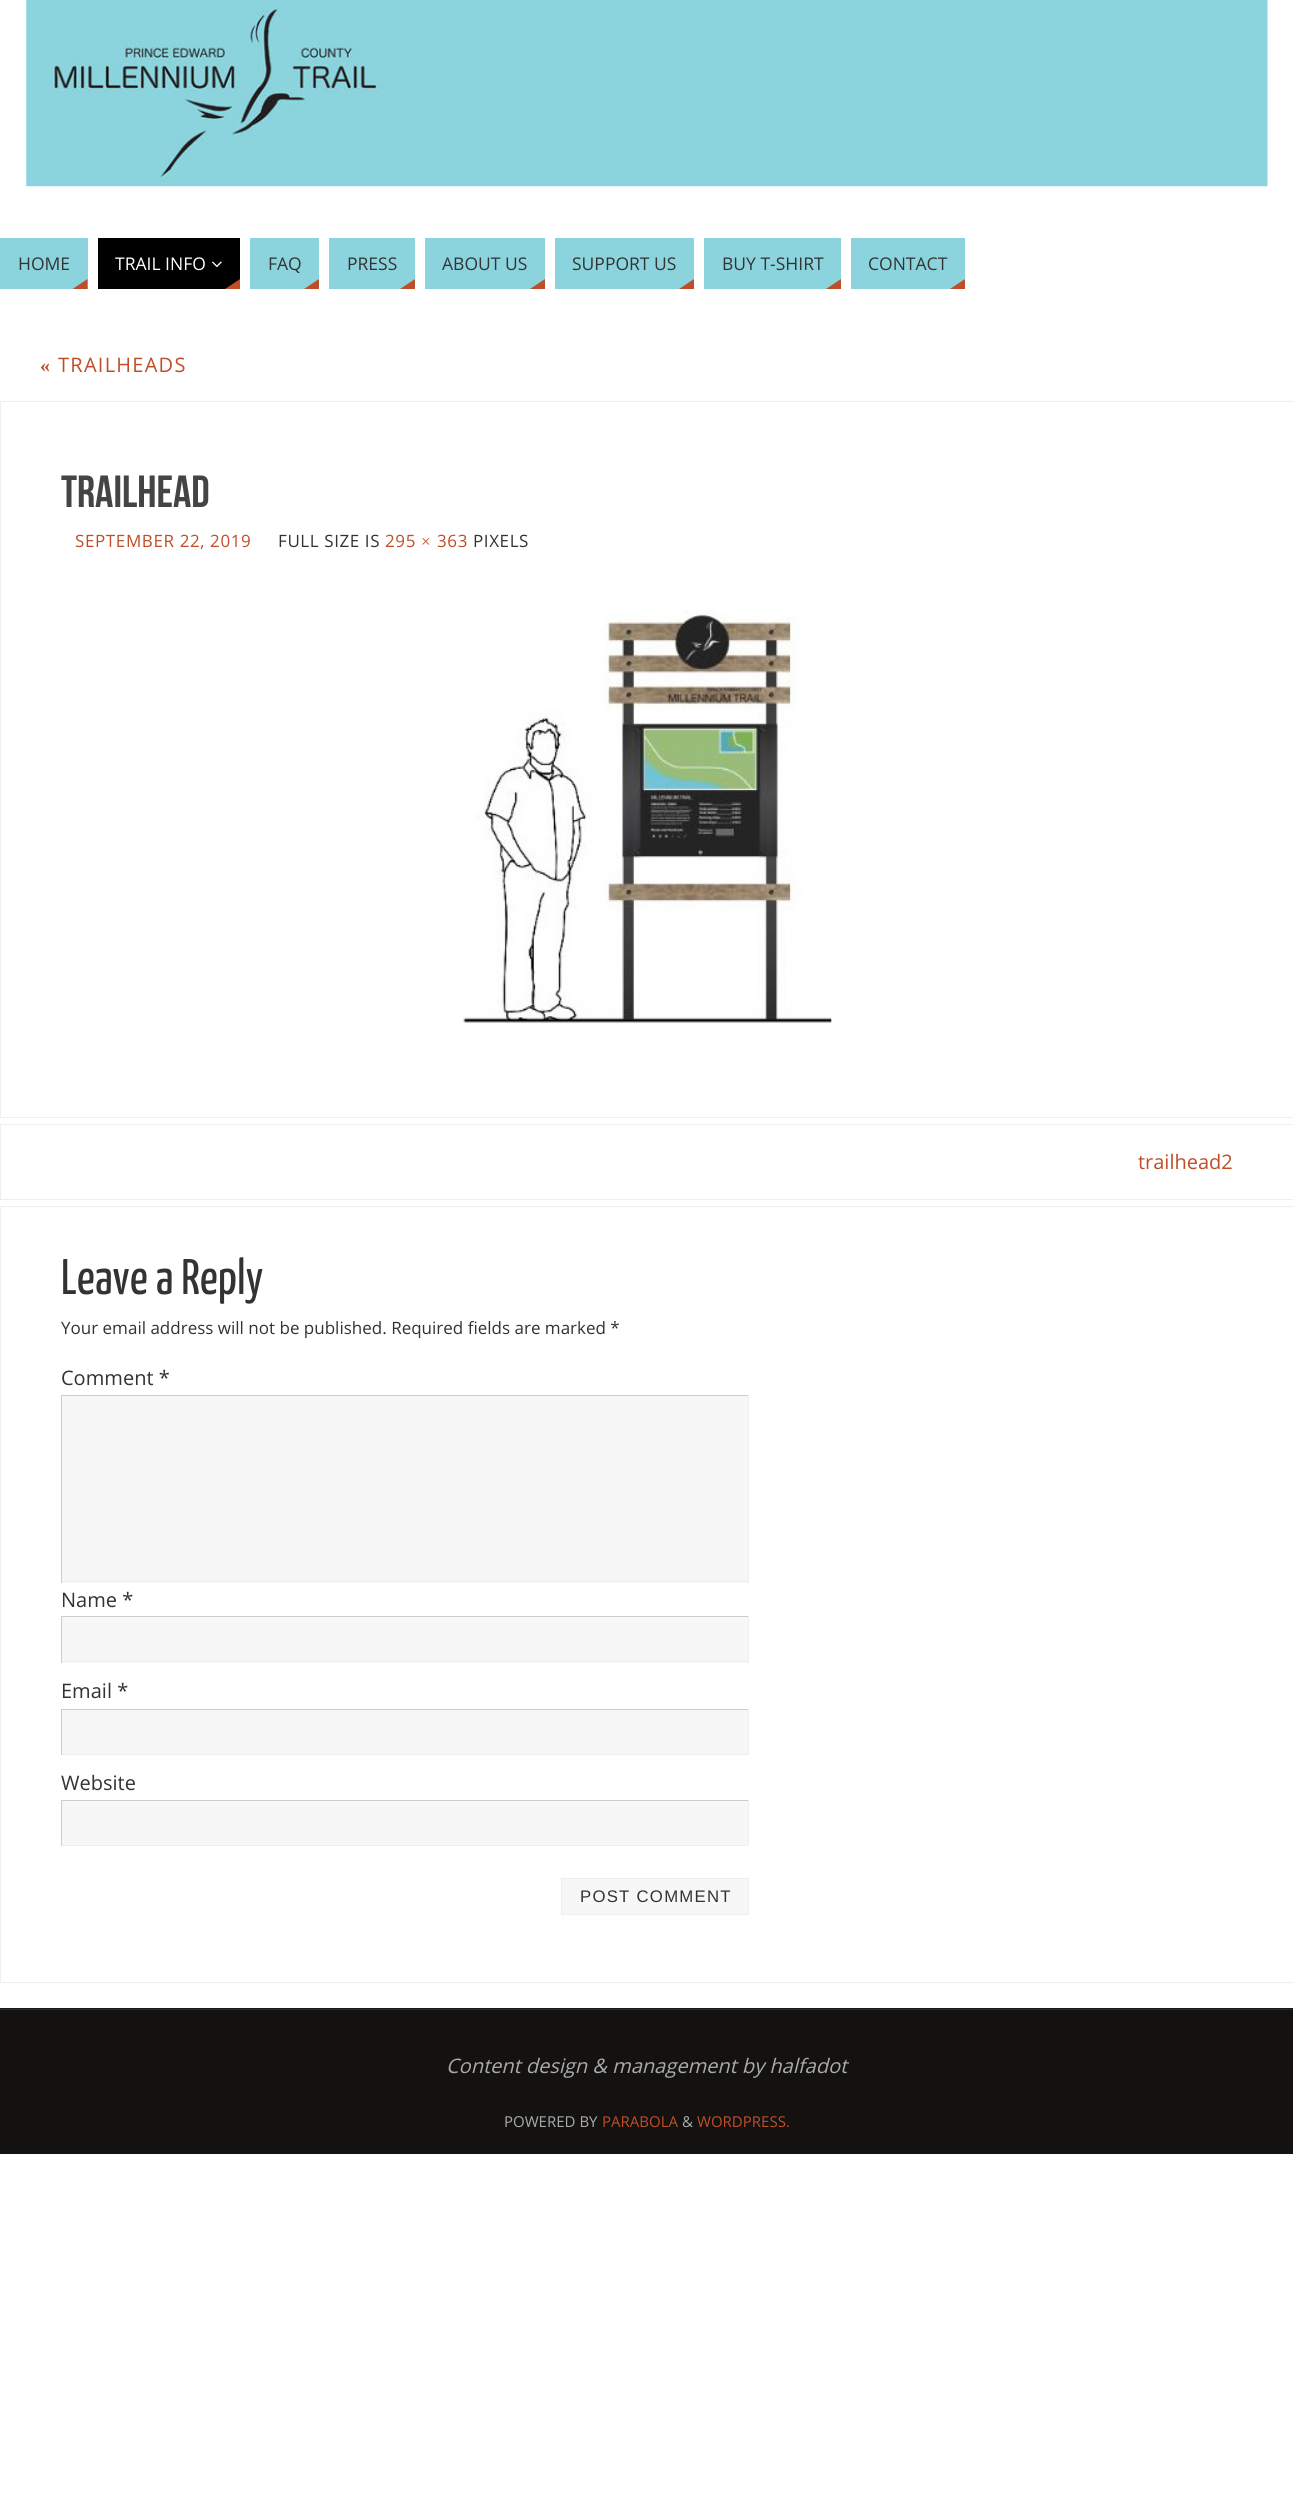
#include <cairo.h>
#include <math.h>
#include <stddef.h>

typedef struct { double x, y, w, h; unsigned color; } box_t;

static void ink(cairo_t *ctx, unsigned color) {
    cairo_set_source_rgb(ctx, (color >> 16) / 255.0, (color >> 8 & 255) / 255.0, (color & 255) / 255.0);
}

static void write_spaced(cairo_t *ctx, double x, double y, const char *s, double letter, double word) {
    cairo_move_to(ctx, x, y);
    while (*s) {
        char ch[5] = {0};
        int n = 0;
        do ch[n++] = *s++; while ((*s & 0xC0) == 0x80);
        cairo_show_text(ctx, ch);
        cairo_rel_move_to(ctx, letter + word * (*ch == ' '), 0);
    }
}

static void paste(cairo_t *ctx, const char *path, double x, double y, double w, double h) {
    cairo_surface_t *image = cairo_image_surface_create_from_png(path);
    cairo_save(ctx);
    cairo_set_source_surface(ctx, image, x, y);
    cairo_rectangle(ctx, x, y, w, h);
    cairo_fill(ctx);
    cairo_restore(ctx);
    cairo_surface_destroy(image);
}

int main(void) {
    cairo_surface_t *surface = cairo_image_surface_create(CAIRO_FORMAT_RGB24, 1293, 2493);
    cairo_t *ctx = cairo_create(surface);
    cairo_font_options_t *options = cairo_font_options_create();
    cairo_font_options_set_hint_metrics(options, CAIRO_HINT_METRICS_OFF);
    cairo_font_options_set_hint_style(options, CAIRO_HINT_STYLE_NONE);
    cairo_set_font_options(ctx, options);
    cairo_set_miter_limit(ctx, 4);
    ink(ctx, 0xFFFFFF);
    cairo_paint(ctx);
    paste(ctx, "media/1.png", 26, 0, 1242, 187);
    ink(ctx, 0x8BD4DD);
    cairo_rectangle(ctx, 0, 238, 88, 51);
    cairo_fill(ctx);
    cairo_select_font_face(ctx, "Open Sans", CAIRO_FONT_SLANT_NORMAL, CAIRO_FONT_WEIGHT_NORMAL);
    cairo_set_font_size(ctx, 17.5);
    ink(ctx, 0x333333);
    cairo_move_to(ctx, 18, 270);
    cairo_show_text(ctx, "HOME");
    ink(ctx, 0xBF4D28);
    cairo_new_path(ctx);
    cairo_move_to(ctx, 87.5, 289);
    cairo_line_to(ctx, 72.5, 289);
    cairo_line_to(ctx, 87.5, 279);
    cairo_close_path(ctx);
    cairo_fill(ctx);
    ink(ctx, 0x000000);
    cairo_rectangle(ctx, 98, 238, 142, 51);
    cairo_fill(ctx);
    ink(ctx, 0xFFFFFF);
    cairo_move_to(ctx, 115, 270);
    cairo_show_text(ctx, "TRAIL INFO");
    paste(ctx, "media/2.png", 212, 261, 10, 7);
    ink(ctx, 0xBF4D28);
    cairo_new_path(ctx);
    cairo_move_to(ctx, 240, 289);
    cairo_line_to(ctx, 225, 289);
    cairo_line_to(ctx, 240, 279);
    cairo_close_path(ctx);
    cairo_fill(ctx);
    ink(ctx, 0x8BD4DD);
    cairo_rectangle(ctx, 250, 238, 69, 51);
    cairo_fill(ctx);
    ink(ctx, 0x333333);
    cairo_move_to(ctx, 268, 270);
    cairo_show_text(ctx, "FAQ");
    ink(ctx, 0xBF4D28);
    cairo_new_path(ctx);
    cairo_move_to(ctx, 319, 289);
    cairo_line_to(ctx, 304, 289);
    cairo_line_to(ctx, 319, 279);
    cairo_close_path(ctx);
    cairo_fill(ctx);
    ink(ctx, 0x8BD4DD);
    cairo_rectangle(ctx, 329, 238, 86, 51);
    cairo_fill(ctx);
    ink(ctx, 0x333333);
    cairo_move_to(ctx, 347, 270);
    cairo_show_text(ctx, "PRESS");
    ink(ctx, 0xBF4D28);
    cairo_new_path(ctx);
    cairo_move_to(ctx, 415, 289);
    cairo_line_to(ctx, 400, 289);
    cairo_line_to(ctx, 415, 279);
    cairo_close_path(ctx);
    cairo_fill(ctx);
    ink(ctx, 0x8BD4DD);
    cairo_rectangle(ctx, 425, 238, 120, 51);
    cairo_fill(ctx);
    ink(ctx, 0x333333);
    cairo_move_to(ctx, 442, 270);
    cairo_show_text(ctx, "ABOUT US");
    ink(ctx, 0xBF4D28);
    cairo_new_path(ctx);
    cairo_move_to(ctx, 545, 289);
    cairo_line_to(ctx, 530, 289);
    cairo_line_to(ctx, 545, 279);
    cairo_close_path(ctx);
    cairo_fill(ctx);
    ink(ctx, 0x8BD4DD);
    cairo_rectangle(ctx, 555, 238, 139, 51);
    cairo_fill(ctx);
    ink(ctx, 0x333333);
    cairo_move_to(ctx, 572, 270);
    cairo_show_text(ctx, "SUPPORT US");
    ink(ctx, 0xBF4D28);
    cairo_new_path(ctx);
    cairo_move_to(ctx, 694, 289);
    cairo_line_to(ctx, 679, 289);
    cairo_line_to(ctx, 694, 279);
    cairo_close_path(ctx);
    cairo_fill(ctx);
    ink(ctx, 0x8BD4DD);
    cairo_rectangle(ctx, 704, 238, 137, 51);
    cairo_fill(ctx);
    ink(ctx, 0x333333);
    cairo_move_to(ctx, 722, 270);
    cairo_show_text(ctx, "BUY T-SHIRT");
    ink(ctx, 0xBF4D28);
    cairo_new_path(ctx);
    cairo_move_to(ctx, 841, 289);
    cairo_line_to(ctx, 826, 289);
    cairo_line_to(ctx, 841, 279);
    cairo_close_path(ctx);
    cairo_fill(ctx);
    ink(ctx, 0x8BD4DD);
    cairo_rectangle(ctx, 851, 238, 114, 51);
    cairo_fill(ctx);
    ink(ctx, 0x333333);
    cairo_move_to(ctx, 868, 270);
    cairo_show_text(ctx, "CONTACT");
    ink(ctx, 0xBF4D28);
    cairo_new_path(ctx);
    cairo_move_to(ctx, 965, 289);
    cairo_line_to(ctx, 950, 289);
    cairo_line_to(ctx, 965, 279);
    cairo_close_path(ctx);
    cairo_fill(ctx);
    cairo_select_font_face(ctx, "Liberation Serif", CAIRO_FONT_SLANT_NORMAL, CAIRO_FONT_WEIGHT_BOLD);
    cairo_set_font_size(ctx, 20);
    write_spaced(ctx, 40, 372, "«", 1.25, 0);
    cairo_select_font_face(ctx, "Open Sans", CAIRO_FONT_SLANT_NORMAL, CAIRO_FONT_WEIGHT_NORMAL);
    write_spaced(ctx, 58, 372, "TRAILHEADS", 1.25, 0);
    cairo_rectangle(ctx, 0.5, 401.5, 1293, 716);
    ink(ctx, 0xEEEEEE);
    cairo_set_line_width(ctx, 1);
    cairo_stroke(ctx);
    cairo_select_font_face(ctx, "Bebas Neue", CAIRO_FONT_SLANT_NORMAL, CAIRO_FONT_WEIGHT_NORMAL);
    cairo_set_font_size(ctx, 45);
    ink(ctx, 0x444444);
    cairo_move_to(ctx, 61, 507);
    cairo_show_text(ctx, "trailhead");
    cairo_select_font_face(ctx, "Open Sans", CAIRO_FONT_SLANT_NORMAL, CAIRO_FONT_WEIGHT_NORMAL);
    cairo_set_font_size(ctx, 17);
    ink(ctx, 0xBF4D28);
    write_spaced(ctx, 75, 547, "SEPTEMBER 22, 2019", 0.6, 0);
    ink(ctx, 0x333333);
    write_spaced(ctx, 278, 547, "FULL SIZE IS", 0.6, 0);
    ink(ctx, 0xBF4D28);
    write_spaced(ctx, 385, 547, "295", 0.6, 0);
    cairo_select_font_face(ctx, "Liberation Serif", CAIRO_FONT_SLANT_NORMAL, CAIRO_FONT_WEIGHT_NORMAL);
    write_spaced(ctx, 421, 547, "×", 0.6, 0);
    cairo_select_font_face(ctx, "Open Sans", CAIRO_FONT_SLANT_NORMAL, CAIRO_FONT_WEIGHT_NORMAL);
    write_spaced(ctx, 437, 547, "363", 0.6, 0);
    ink(ctx, 0x333333);
    write_spaced(ctx, 473, 547, "PIXELS", 0.6, 0);
    paste(ctx, "media/3.png", 462, 610, 370, 415);
    cairo_rectangle(ctx, 0.5, 1124.5, 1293, 75);
    ink(ctx, 0xEEEEEE);
    cairo_stroke(ctx);
    cairo_set_font_size(ctx, 20);
    ink(ctx, 0xBF4D28);
    cairo_move_to(ctx, 1138, 1169);
    cairo_show_text(ctx, "trailhead2");
    cairo_rectangle(ctx, 0.5, 1206.5, 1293, 776);
    ink(ctx, 0xEEEEEE);
    cairo_stroke(ctx);
    cairo_select_font_face(ctx, "Yanone Kaffeesatz", CAIRO_FONT_SLANT_NORMAL, CAIRO_FONT_WEIGHT_NORMAL);
    cairo_set_font_size(ctx, 50);
    ink(ctx, 0x333333);
    cairo_move_to(ctx, 61, 1294);
    cairo_show_text(ctx, "Leave a Reply");
    cairo_select_font_face(ctx, "Open Sans", CAIRO_FONT_SLANT_NORMAL, CAIRO_FONT_WEIGHT_NORMAL);
    cairo_set_font_size(ctx, 17);
    cairo_move_to(ctx, 61, 1334);
    cairo_show_text(ctx, "Your email address will not be published. Required fields are marked *");
    cairo_set_font_size(ctx, 20);
    cairo_move_to(ctx, 61, 1385);
    cairo_show_text(ctx, "Comment *");
    {
        static const box_t items[] = {
            {62, 1396, 686, 187, 0xF7F7F7},
            {61, 1395, 688, 1, 0xCCCCCC},
            {748, 1395, 1, 188, 0xEEEEEE},
            {61, 1581, 688, 1, 0xEEEEEE},
            {61, 1395, 1, 188, 0xCCCCCC},
        };
        for (size_t i = 0; i < sizeof items / sizeof *items; i++) {
            ink(ctx, items[i].color);
            cairo_rectangle(ctx, items[i].x, items[i].y, items[i].w, items[i].h);
            cairo_fill(ctx);
        }
    }
    ink(ctx, 0x333333);
    cairo_move_to(ctx, 61, 1607);
    cairo_show_text(ctx, "Name *");
    {
        static const box_t items[] = {
            {62, 1617, 686, 46, 0xF7F7F7},
            {61, 1616, 688, 1, 0xCCCCCC},
            {748, 1616, 1, 47, 0xEEEEEE},
            {61, 1661, 688, 1, 0xEEEEEE},
            {61, 1616, 1, 47, 0xCCCCCC},
        };
        for (size_t i = 0; i < sizeof items / sizeof *items; i++) {
            ink(ctx, items[i].color);
            cairo_rectangle(ctx, items[i].x, items[i].y, items[i].w, items[i].h);
            cairo_fill(ctx);
        }
    }
    ink(ctx, 0x333333);
    cairo_move_to(ctx, 61, 1698);
    cairo_show_text(ctx, "Email *");
    {
        static const box_t items[] = {
            {62, 1710, 686, 44, 0xF7F7F7},
            {61, 1709, 688, 1, 0xCCCCCC},
            {748, 1709, 1, 46, 0xEEEEEE},
            {61, 1754, 688, 1, 0xEEEEEE},
            {61, 1709, 1, 46, 0xCCCCCC},
        };
        for (size_t i = 0; i < sizeof items / sizeof *items; i++) {
            ink(ctx, items[i].color);
            cairo_rectangle(ctx, items[i].x, items[i].y, items[i].w, items[i].h);
            cairo_fill(ctx);
        }
    }
    ink(ctx, 0x333333);
    cairo_move_to(ctx, 61, 1790);
    cairo_show_text(ctx, "Website");
    {
        static const box_t items[] = {
            {62, 1801, 686, 44, 0xF7F7F7},
            {61, 1800, 688, 1, 0xCCCCCC},
            {748, 1800, 1, 46, 0xEEEEEE},
            {61, 1845, 688, 1, 0xEEEEEE},
            {61, 1800, 1, 46, 0xCCCCCC},
        };
        for (size_t i = 0; i < sizeof items / sizeof *items; i++) {
            ink(ctx, items[i].color);
            cairo_rectangle(ctx, items[i].x, items[i].y, items[i].w, items[i].h);
            cairo_fill(ctx);
        }
    }
    ink(ctx, 0xF7F7F7);
    cairo_rectangle(ctx, 561.5, 1878.5, 187, 36);
    cairo_fill_preserve(ctx);
    ink(ctx, 0xEEEEEE);
    cairo_stroke(ctx);
    cairo_select_font_face(ctx, "Liberation Sans", CAIRO_FONT_SLANT_NORMAL, CAIRO_FONT_WEIGHT_NORMAL);
    cairo_set_font_size(ctx, 16.75);
    ink(ctx, 0x333333);
    write_spaced(ctx, 580, 1902, "POST COMMENT", 1.25, 0);
    {
        static const box_t items[] = {
            {0, 2008, 1293, 1, 0x1A1917},
            {0, 2010, 1293, 144, 0x131211},
            {0, 2009, 1293, 1, 0x2B2A29},
        };
        for (size_t i = 0; i < sizeof items / sizeof *items; i++) {
            ink(ctx, items[i].color);
            cairo_rectangle(ctx, items[i].x, items[i].y, items[i].w, items[i].h);
            cairo_fill(ctx);
        }
    }
    cairo_select_font_face(ctx, "Open Sans", CAIRO_FONT_SLANT_ITALIC, CAIRO_FONT_WEIGHT_NORMAL);
    cairo_set_font_size(ctx, 20);
    ink(ctx, 0xAAAAAA);
    cairo_move_to(ctx, 446, 2073);
    cairo_show_text(ctx, "Content design & management by halfadot");
    cairo_select_font_face(ctx, "Open Sans", CAIRO_FONT_SLANT_NORMAL, CAIRO_FONT_WEIGHT_NORMAL);
    cairo_set_font_size(ctx, 15);
    cairo_move_to(ctx, 504, 2127);
    cairo_show_text(ctx, "POWERED BY");
    ink(ctx, 0xBF4D28);
    cairo_move_to(ctx, 602, 2127);
    cairo_show_text(ctx, "PARABOLA");
    ink(ctx, 0xAAAAAA);
    cairo_move_to(ctx, 682, 2127);
    cairo_show_text(ctx, "&");
    ink(ctx, 0xBF4D28);
    cairo_move_to(ctx, 697, 2127);
    cairo_show_text(ctx, "WORDPRESS.");
    cairo_surface_write_to_png(surface, "image.png");
    cairo_font_options_destroy(options);
    cairo_destroy(ctx);
    cairo_surface_destroy(surface);
    return 0;
}
